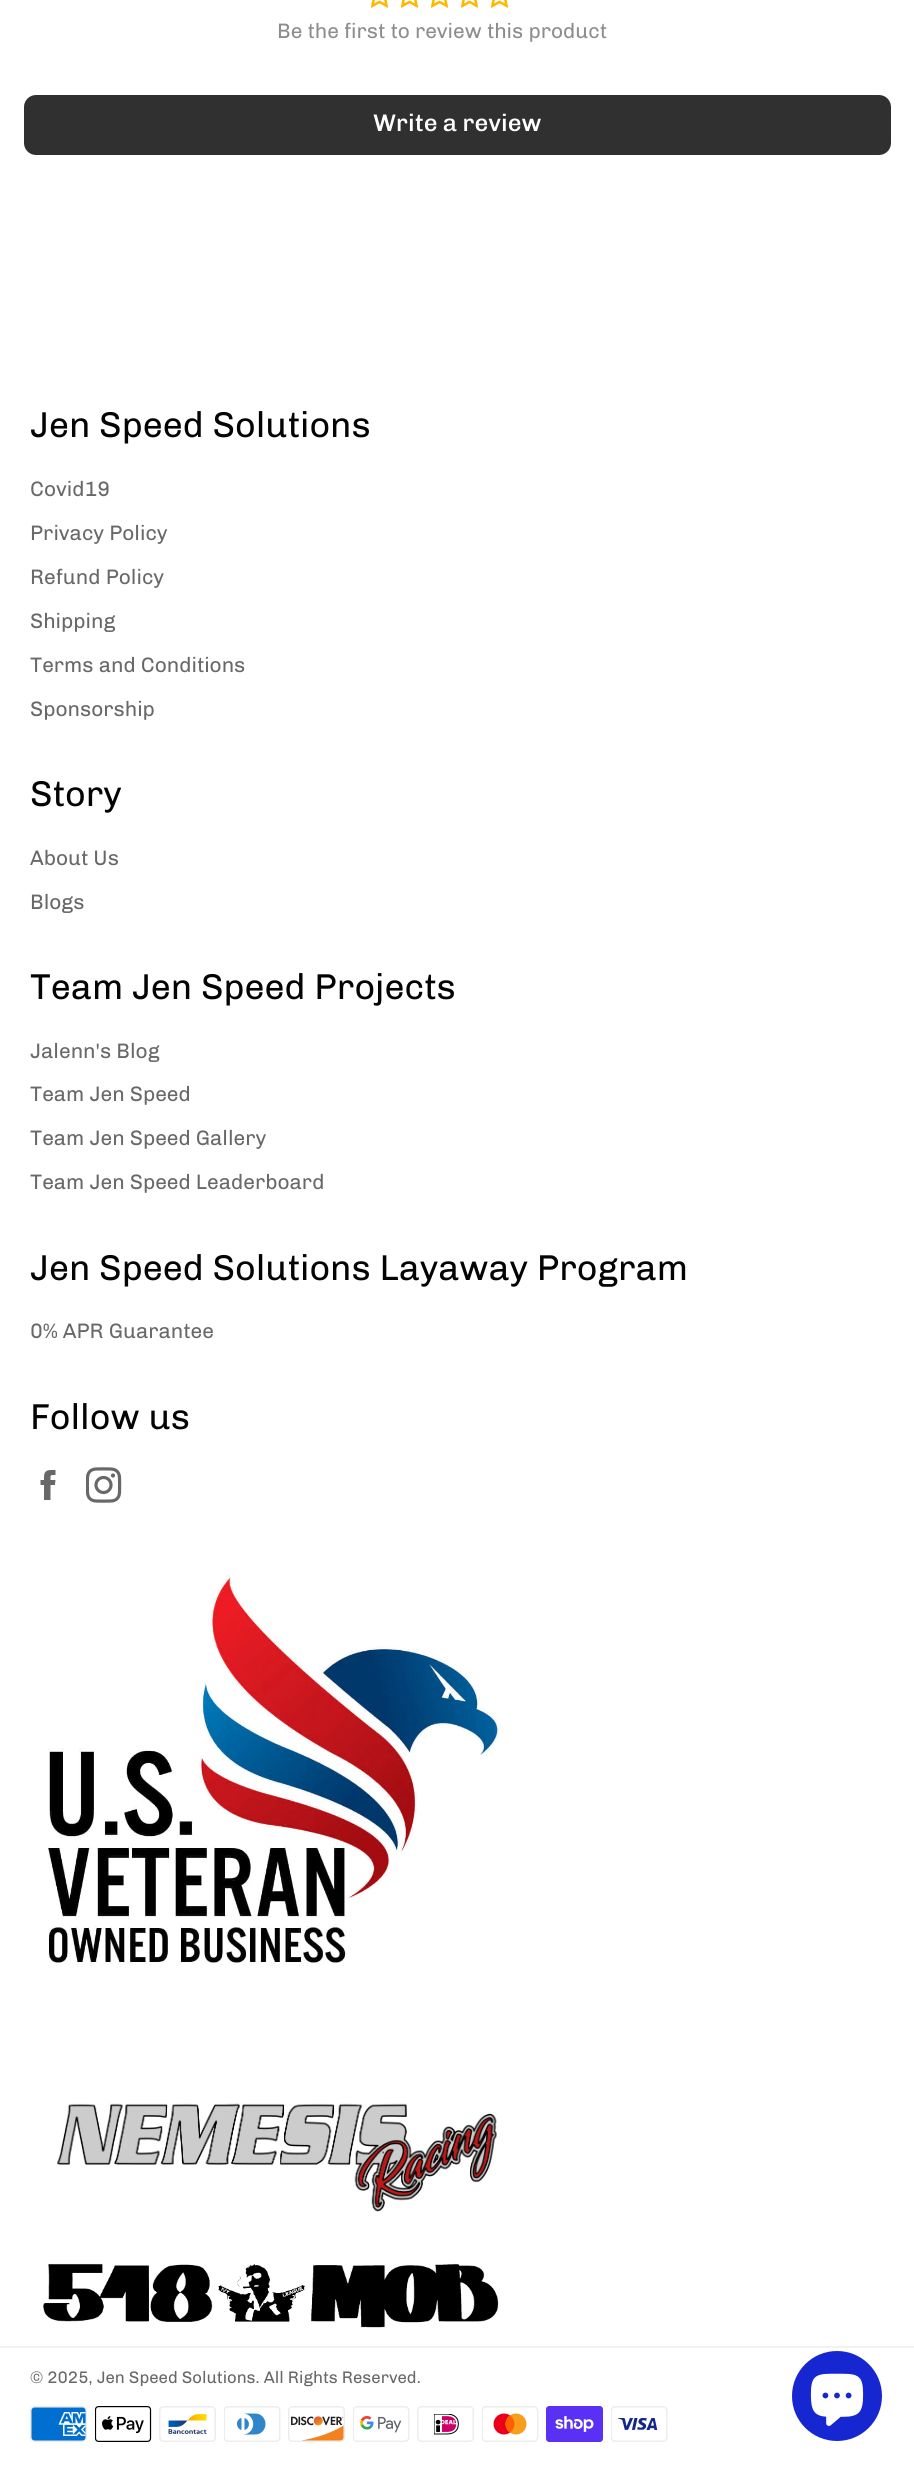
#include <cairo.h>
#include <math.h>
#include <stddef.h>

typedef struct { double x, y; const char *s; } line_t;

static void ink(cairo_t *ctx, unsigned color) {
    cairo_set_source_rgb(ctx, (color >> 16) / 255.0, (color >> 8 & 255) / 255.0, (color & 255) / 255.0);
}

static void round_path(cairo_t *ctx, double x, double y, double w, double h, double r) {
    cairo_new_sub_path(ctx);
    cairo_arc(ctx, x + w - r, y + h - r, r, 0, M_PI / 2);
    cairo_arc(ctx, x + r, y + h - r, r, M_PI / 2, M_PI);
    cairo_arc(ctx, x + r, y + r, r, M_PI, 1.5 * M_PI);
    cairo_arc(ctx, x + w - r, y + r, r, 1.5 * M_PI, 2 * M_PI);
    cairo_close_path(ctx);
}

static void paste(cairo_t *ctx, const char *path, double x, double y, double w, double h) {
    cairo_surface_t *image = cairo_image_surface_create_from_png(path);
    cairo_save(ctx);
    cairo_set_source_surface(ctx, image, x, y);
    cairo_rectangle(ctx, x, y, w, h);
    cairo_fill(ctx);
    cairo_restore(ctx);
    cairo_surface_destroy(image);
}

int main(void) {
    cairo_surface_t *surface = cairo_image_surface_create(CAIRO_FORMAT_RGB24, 914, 2471);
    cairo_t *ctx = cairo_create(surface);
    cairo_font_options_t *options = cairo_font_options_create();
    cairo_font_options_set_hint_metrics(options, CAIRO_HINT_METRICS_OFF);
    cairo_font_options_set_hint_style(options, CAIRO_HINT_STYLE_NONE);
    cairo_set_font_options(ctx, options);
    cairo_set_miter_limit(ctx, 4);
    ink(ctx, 0xFFFFFF);
    cairo_paint(ctx);
    paste(ctx, "media/1.png", 370, 0, 19, 8);
    paste(ctx, "media/1.png", 400, 0, 19, 8);
    paste(ctx, "media/1.png", 430, 0, 19, 8);
    paste(ctx, "media/1.png", 460, 0, 19, 8);
    paste(ctx, "media/1.png", 490, 0, 19, 8);
    cairo_select_font_face(ctx, "Chivo", CAIRO_FONT_SLANT_NORMAL, CAIRO_FONT_WEIGHT_NORMAL);
    cairo_set_font_size(ctx, 21);
    ink(ctx, 0x8D8D8D);
    cairo_move_to(ctx, 277, 38);
    cairo_show_text(ctx, "Be the first to review this product");
    ink(ctx, 0x303030);
    round_path(ctx, 24, 95, 867, 60, 12);
    cairo_fill(ctx);
    cairo_select_font_face(ctx, "Chivo Medium", CAIRO_FONT_SLANT_NORMAL, CAIRO_FONT_WEIGHT_NORMAL);
    cairo_set_font_size(ctx, 24);
    ink(ctx, 0xFFFFFF);
    cairo_move_to(ctx, 373, 131);
    cairo_show_text(ctx, "Write a review");
    cairo_select_font_face(ctx, "Chivo", CAIRO_FONT_SLANT_NORMAL, CAIRO_FONT_WEIGHT_NORMAL);
    cairo_set_font_size(ctx, 36);
    ink(ctx, 0x030303);
    cairo_move_to(ctx, 30, 437);
    cairo_show_text(ctx, "Jen Speed Solutions");
    cairo_set_font_size(ctx, 21);
    ink(ctx, 0x686868);
    {
        static const line_t items[] = {
            {30, 496, "Covid19"},
            {30, 540, "Privacy Policy"},
            {30, 584, "Refund Policy"},
            {30, 628, "Shipping"},
            {30, 672, "Terms and Conditions"},
            {30, 716, "Sponsorship"},
        };
        for (size_t i = 0; i < sizeof items / sizeof *items; i++) {
            cairo_move_to(ctx, items[i].x, items[i].y);
            cairo_show_text(ctx, items[i].s);
        }
    }
    cairo_set_font_size(ctx, 36);
    ink(ctx, 0x030303);
    cairo_move_to(ctx, 30, 806);
    cairo_show_text(ctx, "Story");
    cairo_set_font_size(ctx, 21);
    ink(ctx, 0x686868);
    cairo_move_to(ctx, 30, 865);
    cairo_show_text(ctx, "About Us");
    cairo_move_to(ctx, 30, 909);
    cairo_show_text(ctx, "Blogs");
    cairo_set_font_size(ctx, 36);
    ink(ctx, 0x030303);
    cairo_move_to(ctx, 30, 999);
    cairo_show_text(ctx, "Team Jen Speed Projects");
    cairo_set_font_size(ctx, 21);
    ink(ctx, 0x686868);
    {
        static const line_t items[] = {
            {30, 1058, "Jalenn's Blog"},
            {30, 1101, "Team Jen Speed"},
            {30, 1145, "Team Jen Speed Gallery"},
            {30, 1189, "Team Jen Speed Leaderboard"},
        };
        for (size_t i = 0; i < sizeof items / sizeof *items; i++) {
            cairo_move_to(ctx, items[i].x, items[i].y);
            cairo_show_text(ctx, items[i].s);
        }
    }
    cairo_set_font_size(ctx, 36);
    ink(ctx, 0x030303);
    cairo_move_to(ctx, 30, 1280);
    cairo_show_text(ctx, "Jen Speed Solutions Layaway Program");
    cairo_set_font_size(ctx, 21);
    ink(ctx, 0x686868);
    cairo_move_to(ctx, 30, 1338);
    cairo_show_text(ctx, "0% APR Guarantee");
    cairo_set_font_size(ctx, 36);
    ink(ctx, 0x030303);
    cairo_move_to(ctx, 30, 1429);
    cairo_show_text(ctx, "Follow us");
    paste(ctx, "media/2.png", 40, 1470, 16, 30);
    paste(ctx, "media/3.png", 86, 1467, 36, 36);
    paste(ctx, "media/4.png", 48, 1575, 451, 391);
    paste(ctx, "media/5.png", 57, 2103, 441, 109);
    paste(ctx, "media/6.png", 43, 2263, 456, 65);
    ink(ctx, 0xF2F2F2);
    cairo_rectangle(ctx, 0, 2346, 914, 2);
    cairo_fill(ctx);
    cairo_set_font_size(ctx, 16.8);
    ink(ctx, 0x686868);
    cairo_move_to(ctx, 30, 2383);
    cairo_show_text(ctx, "© 2025, Jen Speed Solutions. All Rights Reserved.");
    paste(ctx, "media/7.png", 30, 2406, 57, 36);
    paste(ctx, "media/8.png", 95, 2406, 57, 36);
    paste(ctx, "media/9.png", 159, 2406, 57, 36);
    paste(ctx, "media/10.png", 224, 2406, 57, 36);
    paste(ctx, "media/11.png", 288, 2406, 57, 36);
    paste(ctx, "media/12.png", 353, 2406, 57, 36);
    paste(ctx, "media/13.png", 417, 2406, 57, 36);
    paste(ctx, "media/14.png", 482, 2406, 57, 36);
    paste(ctx, "media/15.png", 546, 2406, 57, 36);
    paste(ctx, "media/16.png", 611, 2406, 57, 36);
    ink(ctx, 0x1626D1);
    cairo_arc(ctx, 837, 2396, 45, 0, 2 * M_PI);
    cairo_fill(ctx);
    paste(ctx, "media/17.png", 810, 2373, 54, 53);
    cairo_surface_write_to_png(surface, "image.png");
    cairo_font_options_destroy(options);
    cairo_destroy(ctx);
    cairo_surface_destroy(surface);
    return 0;
}
